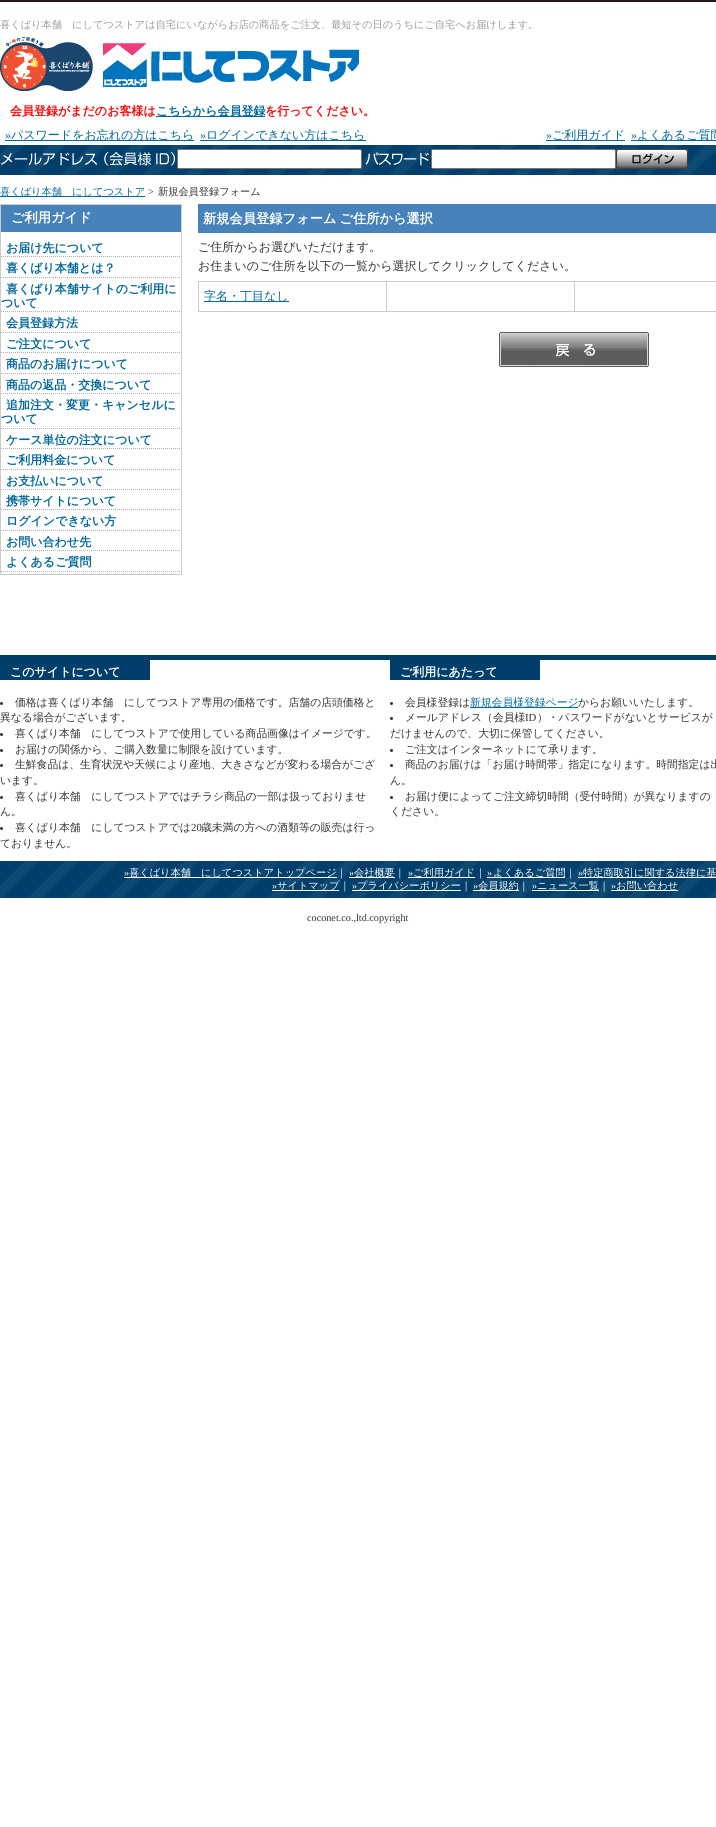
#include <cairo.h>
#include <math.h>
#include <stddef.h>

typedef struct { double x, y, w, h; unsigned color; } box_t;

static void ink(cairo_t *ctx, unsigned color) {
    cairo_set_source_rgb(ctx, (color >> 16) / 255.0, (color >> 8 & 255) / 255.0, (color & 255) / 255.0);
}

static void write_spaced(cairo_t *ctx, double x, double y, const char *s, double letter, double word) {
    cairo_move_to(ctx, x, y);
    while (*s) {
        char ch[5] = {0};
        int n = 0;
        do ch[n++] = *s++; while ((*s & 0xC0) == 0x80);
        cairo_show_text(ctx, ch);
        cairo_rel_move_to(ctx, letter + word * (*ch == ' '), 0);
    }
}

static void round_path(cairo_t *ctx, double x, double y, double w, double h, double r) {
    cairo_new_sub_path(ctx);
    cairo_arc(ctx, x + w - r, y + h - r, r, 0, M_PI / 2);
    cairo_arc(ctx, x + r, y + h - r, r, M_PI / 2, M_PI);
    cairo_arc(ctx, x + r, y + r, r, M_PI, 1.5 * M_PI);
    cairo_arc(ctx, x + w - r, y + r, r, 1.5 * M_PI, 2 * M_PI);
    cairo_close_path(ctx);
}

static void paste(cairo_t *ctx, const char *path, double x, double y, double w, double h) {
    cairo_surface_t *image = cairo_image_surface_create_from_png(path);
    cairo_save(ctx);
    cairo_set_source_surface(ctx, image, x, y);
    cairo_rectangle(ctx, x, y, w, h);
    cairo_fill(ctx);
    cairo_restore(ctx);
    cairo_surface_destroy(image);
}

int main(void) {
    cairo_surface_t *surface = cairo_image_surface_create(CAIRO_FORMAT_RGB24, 716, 1827);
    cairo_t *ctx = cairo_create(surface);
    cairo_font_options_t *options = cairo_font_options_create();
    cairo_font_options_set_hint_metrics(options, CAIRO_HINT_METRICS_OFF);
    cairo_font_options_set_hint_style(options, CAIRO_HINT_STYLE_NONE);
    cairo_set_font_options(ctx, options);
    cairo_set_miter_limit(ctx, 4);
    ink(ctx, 0xFFFFFF);
    cairo_paint(ctx);
    ink(ctx, 0x231917);
    cairo_rectangle(ctx, 0, 0, 716, 2);
    cairo_fill(ctx);
    cairo_select_font_face(ctx, "WenQuanYi Zen Hei Medium", CAIRO_FONT_SLANT_NORMAL, CAIRO_FONT_WEIGHT_NORMAL);
    cairo_set_font_size(ctx, 10.2);
    ink(ctx, 0x999999);
    cairo_move_to(ctx, 0, 28);
    cairo_show_text(ctx, "喜くばり本舗　にしてつストアは自宅にいながらお店の商品をご注文、最短その日のうちにご自宅へお届けします。");
    paste(ctx, "media/1.png", 0, 37, 359, 54);
    cairo_select_font_face(ctx, "WenQuanYi Zen Hei", CAIRO_FONT_SLANT_NORMAL, CAIRO_FONT_WEIGHT_BOLD);
    cairo_set_font_size(ctx, 12);
    ink(ctx, 0xFF0000);
    cairo_move_to(ctx, 10, 115);
    cairo_show_text(ctx, "会員登録がまだのお客様は");
    ink(ctx, 0x006699);
    cairo_rectangle(ctx, 156, 116, 109, 1);
    cairo_fill(ctx);
    cairo_move_to(ctx, 156, 115);
    cairo_show_text(ctx, "こちらから会員登録");
    ink(ctx, 0xFF0000);
    cairo_move_to(ctx, 265, 115);
    cairo_show_text(ctx, "を行ってください。");
    cairo_select_font_face(ctx, "Liberation Serif", CAIRO_FONT_SLANT_NORMAL, CAIRO_FONT_WEIGHT_NORMAL);
    ink(ctx, 0x006699);
    cairo_move_to(ctx, 5, 139);
    cairo_show_text(ctx, "»");
    cairo_rectangle(ctx, 5, 140, 189, 1);
    cairo_fill(ctx);
    cairo_select_font_face(ctx, "WenQuanYi Zen Hei Medium", CAIRO_FONT_SLANT_NORMAL, CAIRO_FONT_WEIGHT_NORMAL);
    cairo_move_to(ctx, 11, 139);
    cairo_show_text(ctx, "パスワードをお忘れの方はこちら");
    cairo_select_font_face(ctx, "Liberation Serif", CAIRO_FONT_SLANT_NORMAL, CAIRO_FONT_WEIGHT_NORMAL);
    cairo_move_to(ctx, 200, 139);
    cairo_show_text(ctx, "»");
    cairo_rectangle(ctx, 200, 140, 166, 1);
    cairo_fill(ctx);
    cairo_select_font_face(ctx, "WenQuanYi Zen Hei Medium", CAIRO_FONT_SLANT_NORMAL, CAIRO_FONT_WEIGHT_NORMAL);
    cairo_move_to(ctx, 206, 139);
    cairo_show_text(ctx, "ログインできない方はこちら");
    cairo_select_font_face(ctx, "Liberation Serif", CAIRO_FONT_SLANT_NORMAL, CAIRO_FONT_WEIGHT_NORMAL);
    cairo_move_to(ctx, 546, 139);
    cairo_show_text(ctx, "»");
    cairo_rectangle(ctx, 546, 140, 79, 1);
    cairo_fill(ctx);
    cairo_select_font_face(ctx, "WenQuanYi Zen Hei Medium", CAIRO_FONT_SLANT_NORMAL, CAIRO_FONT_WEIGHT_NORMAL);
    cairo_move_to(ctx, 552, 139);
    cairo_show_text(ctx, "ご利用ガイド");
    cairo_select_font_face(ctx, "Liberation Serif", CAIRO_FONT_SLANT_NORMAL, CAIRO_FONT_WEIGHT_NORMAL);
    cairo_move_to(ctx, 631, 139);
    cairo_show_text(ctx, "»");
    cairo_rectangle(ctx, 631, 140, 85, 1);
    cairo_fill(ctx);
    cairo_select_font_face(ctx, "WenQuanYi Zen Hei Medium", CAIRO_FONT_SLANT_NORMAL, CAIRO_FONT_WEIGHT_NORMAL);
    cairo_move_to(ctx, 637, 139);
    cairo_show_text(ctx, "よくあるご質問");
    paste(ctx, "media/2.png", 0, 145, 716, 30);
    paste(ctx, "media/3.png", 1, 152, 174, 14);
    ink(ctx, 0xFFFFFF);
    round_path(ctx, 177.5, 149.5, 184, 19, 1.5);
    cairo_fill_preserve(ctx);
    ink(ctx, 0x767676);
    cairo_set_line_width(ctx, 1);
    cairo_stroke(ctx);
    paste(ctx, "media/4.png", 365, 152, 64, 14);
    ink(ctx, 0xFFFFFF);
    round_path(ctx, 431.5, 149.5, 184, 19, 1.5);
    cairo_fill_preserve(ctx);
    ink(ctx, 0x767676);
    cairo_stroke(ctx);
    paste(ctx, "media/5.png", 616, 149, 72, 20);
    ink(ctx, 0x006699);
    cairo_rectangle(ctx, 0, 196, 145, 1);
    cairo_fill(ctx);
    cairo_set_font_size(ctx, 10.2);
    cairo_move_to(ctx, 0, 195);
    cairo_show_text(ctx, "喜くばり本舗　にしてつストア");
    cairo_select_font_face(ctx, "Liberation Serif", CAIRO_FONT_SLANT_NORMAL, CAIRO_FONT_WEIGHT_NORMAL);
    ink(ctx, 0x333333);
    cairo_move_to(ctx, 148, 195);
    cairo_show_text(ctx, ">");
    cairo_select_font_face(ctx, "WenQuanYi Zen Hei Medium", CAIRO_FONT_SLANT_NORMAL, CAIRO_FONT_WEIGHT_NORMAL);
    cairo_move_to(ctx, 158, 195);
    cairo_show_text(ctx, "新規会員登録フォーム");
    cairo_rectangle(ctx, 0.5, 204.5, 181, 370);
    ink(ctx, 0xCCCCCC);
    cairo_stroke(ctx);
    ink(ctx, 0x4683BA);
    cairo_rectangle(ctx, 1, 205, 180, 27);
    cairo_fill(ctx);
    cairo_select_font_face(ctx, "WenQuanYi Zen Hei", CAIRO_FONT_SLANT_NORMAL, CAIRO_FONT_WEIGHT_BOLD);
    cairo_set_font_size(ctx, 13.25);
    ink(ctx, 0xFFFFFF);
    cairo_move_to(ctx, 11, 222);
    cairo_show_text(ctx, "ご利用ガイド");
    paste(ctx, "media/6.png", 1, 256, 179, 1);
    cairo_set_font_size(ctx, 12);
    ink(ctx, 0x006699);
    cairo_move_to(ctx, 6, 252);
    cairo_show_text(ctx, "お届け先について");
    paste(ctx, "media/6.png", 1, 277, 179, 1);
    cairo_move_to(ctx, 6, 272);
    cairo_show_text(ctx, "喜くばり本舗とは？");
    paste(ctx, "media/6.png", 1, 311, 179, 1);
    cairo_move_to(ctx, 6, 293);
    cairo_show_text(ctx, "喜くばり本舗サイトのご利用に");
    cairo_move_to(ctx, 1, 307);
    cairo_show_text(ctx, "ついて");
    paste(ctx, "media/6.png", 1, 332, 179, 1);
    cairo_move_to(ctx, 6, 327);
    cairo_show_text(ctx, "会員登録方法");
    paste(ctx, "media/6.png", 1, 352, 179, 1);
    cairo_move_to(ctx, 6, 348);
    cairo_show_text(ctx, "ご注文について");
    paste(ctx, "media/6.png", 1, 373, 179, 1);
    cairo_move_to(ctx, 6, 368);
    cairo_show_text(ctx, "商品のお届けについて");
    paste(ctx, "media/6.png", 1, 393, 179, 1);
    cairo_move_to(ctx, 6, 389);
    cairo_show_text(ctx, "商品の返品・交換について");
    paste(ctx, "media/6.png", 1, 428, 179, 1);
    cairo_move_to(ctx, 6, 409);
    cairo_show_text(ctx, "追加注文・変更・キャンセルに");
    cairo_move_to(ctx, 1, 423);
    cairo_show_text(ctx, "ついて");
    paste(ctx, "media/6.png", 1, 448, 179, 1);
    cairo_move_to(ctx, 6, 444);
    cairo_show_text(ctx, "ケース単位の注文について");
    paste(ctx, "media/6.png", 1, 469, 179, 1);
    cairo_move_to(ctx, 6, 464);
    cairo_show_text(ctx, "ご利用料金について");
    paste(ctx, "media/6.png", 1, 489, 179, 1);
    cairo_move_to(ctx, 6, 485);
    cairo_show_text(ctx, "お支払いについて");
    paste(ctx, "media/6.png", 1, 509, 179, 1);
    cairo_move_to(ctx, 6, 505);
    cairo_show_text(ctx, "携帯サイトについて");
    paste(ctx, "media/6.png", 1, 530, 179, 1);
    cairo_move_to(ctx, 6, 525);
    cairo_show_text(ctx, "ログインできない方");
    paste(ctx, "media/6.png", 1, 550, 179, 1);
    cairo_move_to(ctx, 6, 546);
    cairo_show_text(ctx, "お問い合わせ先");
    paste(ctx, "media/6.png", 1, 571, 179, 1);
    cairo_move_to(ctx, 6, 566);
    cairo_show_text(ctx, "よくあるご質問");
    ink(ctx, 0x4683BA);
    cairo_rectangle(ctx, 198, 204, 518, 29);
    cairo_fill(ctx);
    cairo_set_font_size(ctx, 13.25);
    ink(ctx, 0xFFFFFF);
    write_spaced(ctx, 203, 223, "新規会員登録フォーム ご住所から選択", 0, -1);
    cairo_select_font_face(ctx, "WenQuanYi Zen Hei Medium", CAIRO_FONT_SLANT_NORMAL, CAIRO_FONT_WEIGHT_NORMAL);
    cairo_set_font_size(ctx, 12);
    ink(ctx, 0x333333);
    cairo_move_to(ctx, 198, 251);
    cairo_show_text(ctx, "ご住所からお選びいただけます。");
    cairo_move_to(ctx, 198, 270);
    cairo_show_text(ctx, "お住まいのご住所を以下の一覧から選択してクリックしてください。");
    {
        static const box_t items[] = {
            {198, 281, 518, 31, 0xCCCCCC},
            {199, 282, 187, 29, 0xFFFFFF},
            {204, 301, 85, 1, 0x006699},
        };
        for (size_t i = 0; i < sizeof items / sizeof *items; i++) {
            ink(ctx, items[i].color);
            cairo_rectangle(ctx, items[i].x, items[i].y, items[i].w, items[i].h);
            cairo_fill(ctx);
        }
    }
    cairo_move_to(ctx, 204, 300);
    cairo_show_text(ctx, "字名・丁目なし");
    ink(ctx, 0xFFFFFF);
    cairo_rectangle(ctx, 387, 282, 187, 29);
    cairo_fill(ctx);
    cairo_rectangle(ctx, 575, 282, 141, 29);
    cairo_fill(ctx);
    paste(ctx, "media/7.png", 499, 332, 150, 35);
    ink(ctx, 0x003F68);
    cairo_rectangle(ctx, 0, 655, 716, 5);
    cairo_fill(ctx);
    ink(ctx, 0x003F6B);
    cairo_rectangle(ctx, 0, 660, 150, 20);
    cairo_fill(ctx);
    cairo_select_font_face(ctx, "WenQuanYi Zen Hei", CAIRO_FONT_SLANT_NORMAL, CAIRO_FONT_WEIGHT_BOLD);
    ink(ctx, 0xFFFFFF);
    cairo_move_to(ctx, 10, 676);
    cairo_show_text(ctx, "このサイトについて");
    ink(ctx, 0x333333);
    cairo_new_path(ctx);
    cairo_arc(ctx, 1.5, 703.5, 1.5, 0, 2 * M_PI);
    cairo_fill(ctx);
    cairo_select_font_face(ctx, "WenQuanYi Zen Hei Medium", CAIRO_FONT_SLANT_NORMAL, CAIRO_FONT_WEIGHT_NORMAL);
    cairo_set_font_size(ctx, 10.8);
    cairo_move_to(ctx, 15, 706);
    cairo_show_text(ctx, "価格は喜くばり本舗　にしてつストア専用の価格です。店舗の店頭価格と");
    cairo_move_to(ctx, 0, 721);
    cairo_show_text(ctx, "異なる場合がございます。");
    cairo_new_path(ctx);
    cairo_arc(ctx, 1.5, 734.5, 1.5, 0, 2 * M_PI);
    cairo_fill(ctx);
    cairo_move_to(ctx, 15, 737);
    cairo_show_text(ctx, "喜くばり本舗　にしてつストアで使用している商品画像はイメージです。");
    cairo_new_path(ctx);
    cairo_arc(ctx, 1.5, 750.5, 1.5, 0, 2 * M_PI);
    cairo_fill(ctx);
    cairo_move_to(ctx, 15, 753);
    cairo_show_text(ctx, "お届けの関係から、ご購入数量に制限を設けています。");
    cairo_new_path(ctx);
    cairo_arc(ctx, 1.5, 765.5, 1.5, 0, 2 * M_PI);
    cairo_fill(ctx);
    cairo_move_to(ctx, 15, 768);
    cairo_show_text(ctx, "生鮮食品は、生育状況や天候により産地、大きさなどが変わる場合がござ");
    cairo_move_to(ctx, 0, 784);
    cairo_show_text(ctx, "います。");
    cairo_new_path(ctx);
    cairo_arc(ctx, 1.5, 797.5, 1.5, 0, 2 * M_PI);
    cairo_fill(ctx);
    cairo_move_to(ctx, 15, 800);
    cairo_show_text(ctx, "喜くばり本舗　にしてつストアではチラシ商品の一部は扱っておりませ");
    cairo_move_to(ctx, 0, 815);
    cairo_show_text(ctx, "ん。");
    cairo_new_path(ctx);
    cairo_arc(ctx, 1.5, 828.5, 1.5, 0, 2 * M_PI);
    cairo_fill(ctx);
    cairo_move_to(ctx, 15, 831);
    cairo_show_text(ctx, "喜くばり本舗　にしてつストアでは");
    cairo_select_font_face(ctx, "Liberation Serif", CAIRO_FONT_SLANT_NORMAL, CAIRO_FONT_WEIGHT_NORMAL);
    cairo_move_to(ctx, 191, 831);
    cairo_show_text(ctx, "20");
    cairo_select_font_face(ctx, "WenQuanYi Zen Hei Medium", CAIRO_FONT_SLANT_NORMAL, CAIRO_FONT_WEIGHT_NORMAL);
    cairo_move_to(ctx, 201, 831);
    cairo_show_text(ctx, "歳未満の方への酒類等の販売は行っ");
    cairo_move_to(ctx, 0, 847);
    cairo_show_text(ctx, "ておりません。");
    ink(ctx, 0x003F6B);
    cairo_rectangle(ctx, 390, 660, 150, 20);
    cairo_fill(ctx);
    cairo_select_font_face(ctx, "WenQuanYi Zen Hei", CAIRO_FONT_SLANT_NORMAL, CAIRO_FONT_WEIGHT_BOLD);
    cairo_set_font_size(ctx, 12);
    ink(ctx, 0xFFFFFF);
    cairo_move_to(ctx, 400, 676);
    cairo_show_text(ctx, "ご利用にあたって");
    ink(ctx, 0x333333);
    cairo_new_path(ctx);
    cairo_arc(ctx, 391.5, 703.5, 1.5, 0, 2 * M_PI);
    cairo_fill(ctx);
    cairo_select_font_face(ctx, "WenQuanYi Zen Hei Medium", CAIRO_FONT_SLANT_NORMAL, CAIRO_FONT_WEIGHT_NORMAL);
    cairo_set_font_size(ctx, 10.8);
    cairo_move_to(ctx, 405, 706);
    cairo_show_text(ctx, "会員様登録は");
    ink(ctx, 0x006699);
    cairo_rectangle(ctx, 470, 707, 108, 1);
    cairo_fill(ctx);
    cairo_move_to(ctx, 470, 706);
    cairo_show_text(ctx, "新規会員様登録ページ");
    ink(ctx, 0x333333);
    cairo_move_to(ctx, 578, 706);
    cairo_show_text(ctx, "からお願いいたします。");
    cairo_new_path(ctx);
    cairo_arc(ctx, 391.5, 718.5, 1.5, 0, 2 * M_PI);
    cairo_fill(ctx);
    cairo_move_to(ctx, 405, 721);
    cairo_show_text(ctx, "メールアドレス（会員様");
    cairo_select_font_face(ctx, "Liberation Serif", CAIRO_FONT_SLANT_NORMAL, CAIRO_FONT_WEIGHT_NORMAL);
    cairo_move_to(ctx, 525, 721);
    cairo_show_text(ctx, "ID");
    cairo_select_font_face(ctx, "WenQuanYi Zen Hei Medium", CAIRO_FONT_SLANT_NORMAL, CAIRO_FONT_WEIGHT_NORMAL);
    cairo_move_to(ctx, 537, 721);
    cairo_show_text(ctx, "）・パスワードがないとサービスが");
    cairo_move_to(ctx, 390, 737);
    cairo_show_text(ctx, "だけませんので、大切に保管してください。");
    cairo_new_path(ctx);
    cairo_arc(ctx, 391.5, 750.5, 1.5, 0, 2 * M_PI);
    cairo_fill(ctx);
    cairo_move_to(ctx, 405, 753);
    cairo_show_text(ctx, "ご注文はインターネットにて承ります。");
    cairo_new_path(ctx);
    cairo_arc(ctx, 391.5, 765.5, 1.5, 0, 2 * M_PI);
    cairo_fill(ctx);
    cairo_move_to(ctx, 405, 768);
    cairo_show_text(ctx, "商品のお届けは「お届け時間帯」指定になります。時間指定は出");
    cairo_move_to(ctx, 390, 784);
    cairo_show_text(ctx, "ん。");
    cairo_new_path(ctx);
    cairo_arc(ctx, 391.5, 797.5, 1.5, 0, 2 * M_PI);
    cairo_fill(ctx);
    cairo_move_to(ctx, 405, 800);
    cairo_show_text(ctx, "お届け便によってご注文締切時間（受付時間）が異なりますの");
    cairo_move_to(ctx, 390, 815);
    cairo_show_text(ctx, "ください。");
    paste(ctx, "media/8.png", 0, 861, 716, 37);
    cairo_select_font_face(ctx, "Liberation Serif", CAIRO_FONT_SLANT_NORMAL, CAIRO_FONT_WEIGHT_NORMAL);
    cairo_set_font_size(ctx, 10.2);
    ink(ctx, 0xFFFFFF);
    cairo_move_to(ctx, 124, 876);
    cairo_show_text(ctx, "»");
    cairo_rectangle(ctx, 124, 877, 213, 1);
    cairo_fill(ctx);
    cairo_select_font_face(ctx, "WenQuanYi Zen Hei Medium", CAIRO_FONT_SLANT_NORMAL, CAIRO_FONT_WEIGHT_NORMAL);
    cairo_move_to(ctx, 129, 876);
    cairo_show_text(ctx, "喜くばり本舗　にしてつストアトップページ｜");
    cairo_select_font_face(ctx, "Liberation Serif", CAIRO_FONT_SLANT_NORMAL, CAIRO_FONT_WEIGHT_NORMAL);
    cairo_move_to(ctx, 349, 876);
    cairo_show_text(ctx, "»");
    cairo_rectangle(ctx, 349, 877, 46, 1);
    cairo_fill(ctx);
    cairo_select_font_face(ctx, "WenQuanYi Zen Hei Medium", CAIRO_FONT_SLANT_NORMAL, CAIRO_FONT_WEIGHT_NORMAL);
    cairo_move_to(ctx, 354, 876);
    cairo_show_text(ctx, "会社概要｜");
    cairo_select_font_face(ctx, "Liberation Serif", CAIRO_FONT_SLANT_NORMAL, CAIRO_FONT_WEIGHT_NORMAL);
    cairo_move_to(ctx, 408, 876);
    cairo_show_text(ctx, "»");
    cairo_rectangle(ctx, 408, 877, 67, 1);
    cairo_fill(ctx);
    cairo_select_font_face(ctx, "WenQuanYi Zen Hei Medium", CAIRO_FONT_SLANT_NORMAL, CAIRO_FONT_WEIGHT_NORMAL);
    cairo_move_to(ctx, 413, 876);
    cairo_show_text(ctx, "ご利用ガイド｜");
    cairo_select_font_face(ctx, "Liberation Serif", CAIRO_FONT_SLANT_NORMAL, CAIRO_FONT_WEIGHT_NORMAL);
    cairo_move_to(ctx, 487, 876);
    cairo_show_text(ctx, "»");
    cairo_rectangle(ctx, 487, 877, 78, 1);
    cairo_fill(ctx);
    cairo_select_font_face(ctx, "WenQuanYi Zen Hei Medium", CAIRO_FONT_SLANT_NORMAL, CAIRO_FONT_WEIGHT_NORMAL);
    cairo_move_to(ctx, 493, 876);
    cairo_show_text(ctx, "よくあるご質問｜");
    cairo_select_font_face(ctx, "Liberation Serif", CAIRO_FONT_SLANT_NORMAL, CAIRO_FONT_WEIGHT_NORMAL);
    cairo_move_to(ctx, 578, 876);
    cairo_show_text(ctx, "»");
    cairo_rectangle(ctx, 578, 877, 138, 1);
    cairo_fill(ctx);
    cairo_select_font_face(ctx, "WenQuanYi Zen Hei Medium", CAIRO_FONT_SLANT_NORMAL, CAIRO_FONT_WEIGHT_NORMAL);
    cairo_move_to(ctx, 583, 876);
    cairo_show_text(ctx, "特定商取引に関する法律に基");
    cairo_select_font_face(ctx, "Liberation Serif", CAIRO_FONT_SLANT_NORMAL, CAIRO_FONT_WEIGHT_NORMAL);
    cairo_move_to(ctx, 272, 889);
    cairo_show_text(ctx, "»");
    cairo_rectangle(ctx, 272, 890, 67, 1);
    cairo_fill(ctx);
    cairo_select_font_face(ctx, "WenQuanYi Zen Hei Medium", CAIRO_FONT_SLANT_NORMAL, CAIRO_FONT_WEIGHT_NORMAL);
    cairo_move_to(ctx, 277, 889);
    cairo_show_text(ctx, "サイトマップ｜");
    cairo_select_font_face(ctx, "Liberation Serif", CAIRO_FONT_SLANT_NORMAL, CAIRO_FONT_WEIGHT_NORMAL);
    cairo_move_to(ctx, 352, 889);
    cairo_show_text(ctx, "»");
    cairo_rectangle(ctx, 352, 890, 109, 1);
    cairo_fill(ctx);
    cairo_select_font_face(ctx, "WenQuanYi Zen Hei Medium", CAIRO_FONT_SLANT_NORMAL, CAIRO_FONT_WEIGHT_NORMAL);
    cairo_move_to(ctx, 357, 889);
    cairo_show_text(ctx, "プライバシーポリシー｜");
    cairo_select_font_face(ctx, "Liberation Serif", CAIRO_FONT_SLANT_NORMAL, CAIRO_FONT_WEIGHT_NORMAL);
    cairo_move_to(ctx, 473, 889);
    cairo_show_text(ctx, "»");
    cairo_rectangle(ctx, 473, 890, 46, 1);
    cairo_fill(ctx);
    cairo_select_font_face(ctx, "WenQuanYi Zen Hei Medium", CAIRO_FONT_SLANT_NORMAL, CAIRO_FONT_WEIGHT_NORMAL);
    cairo_move_to(ctx, 478, 889);
    cairo_show_text(ctx, "会員規約｜");
    cairo_select_font_face(ctx, "Liberation Serif", CAIRO_FONT_SLANT_NORMAL, CAIRO_FONT_WEIGHT_NORMAL);
    cairo_move_to(ctx, 532, 889);
    cairo_show_text(ctx, "»");
    cairo_rectangle(ctx, 532, 890, 67, 1);
    cairo_fill(ctx);
    cairo_select_font_face(ctx, "WenQuanYi Zen Hei Medium", CAIRO_FONT_SLANT_NORMAL, CAIRO_FONT_WEIGHT_NORMAL);
    cairo_move_to(ctx, 537, 889);
    cairo_show_text(ctx, "ニュース一覧｜");
    cairo_select_font_face(ctx, "Liberation Serif", CAIRO_FONT_SLANT_NORMAL, CAIRO_FONT_WEIGHT_NORMAL);
    cairo_move_to(ctx, 611, 889);
    cairo_show_text(ctx, "»");
    cairo_rectangle(ctx, 611, 890, 67, 1);
    cairo_fill(ctx);
    cairo_select_font_face(ctx, "WenQuanYi Zen Hei Medium", CAIRO_FONT_SLANT_NORMAL, CAIRO_FONT_WEIGHT_NORMAL);
    cairo_move_to(ctx, 616, 889);
    cairo_show_text(ctx, "お問い合わせ");
    cairo_select_font_face(ctx, "Liberation Serif", CAIRO_FONT_SLANT_NORMAL, CAIRO_FONT_WEIGHT_NORMAL);
    ink(ctx, 0x333333);
    cairo_move_to(ctx, 307, 921);
    cairo_show_text(ctx, "coconet.co.,ltd.copyright");
    cairo_surface_write_to_png(surface, "image.png");
    cairo_font_options_destroy(options);
    cairo_destroy(ctx);
    cairo_surface_destroy(surface);
    return 0;
}
